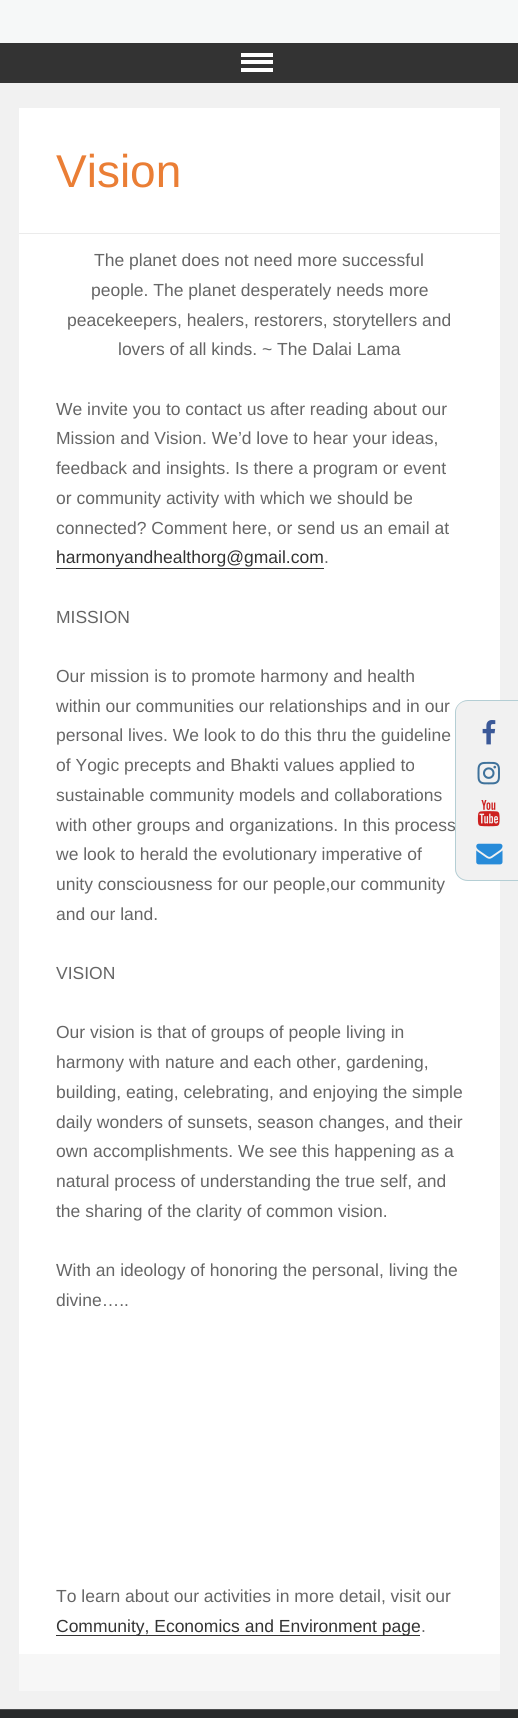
#include <cairo.h>
#include <math.h>
#include <stddef.h>

typedef struct { double x, y; const char *s; } line_t;
typedef struct { double x, y, w, h; unsigned color; } box_t;

static void ink(cairo_t *ctx, unsigned color) {
    cairo_set_source_rgb(ctx, (color >> 16) / 255.0, (color >> 8 & 255) / 255.0, (color & 255) / 255.0);
}

static void paste(cairo_t *ctx, const char *path, double x, double y, double w, double h) {
    cairo_surface_t *image = cairo_image_surface_create_from_png(path);
    cairo_save(ctx);
    cairo_set_source_surface(ctx, image, x, y);
    cairo_rectangle(ctx, x, y, w, h);
    cairo_fill(ctx);
    cairo_restore(ctx);
    cairo_surface_destroy(image);
}

int main(void) {
    cairo_surface_t *surface = cairo_image_surface_create(CAIRO_FORMAT_RGB24, 518, 1718);
    cairo_t *ctx = cairo_create(surface);
    cairo_font_options_t *options = cairo_font_options_create();
    cairo_font_options_set_hint_metrics(options, CAIRO_HINT_METRICS_OFF);
    cairo_font_options_set_hint_style(options, CAIRO_HINT_STYLE_NONE);
    cairo_set_font_options(ctx, options);
    cairo_set_miter_limit(ctx, 4);
    ink(ctx, 0xF1F1F1);
    cairo_paint(ctx);
    {
        static const box_t items[] = {
            {0, 0, 518, 43, 0xF6F8F8},
            {0, 43, 518, 40, 0x333333},
            {241, 60, 32, 4, 0xFFFFFF},
            {241, 53, 32, 4, 0xFFFFFF},
            {241, 68, 32, 4, 0xFFFFFF},
            {19, 108, 481, 1546, 0xFFFFFF},
            {19, 233, 481, 1, 0xEBEBEB},
        };
        for (size_t i = 0; i < sizeof items / sizeof *items; i++) {
            ink(ctx, items[i].color);
            cairo_rectangle(ctx, items[i].x, items[i].y, items[i].w, items[i].h);
            cairo_fill(ctx);
        }
    }
    cairo_select_font_face(ctx, "Liberation Sans", CAIRO_FONT_SLANT_NORMAL, CAIRO_FONT_WEIGHT_NORMAL);
    cairo_set_font_size(ctx, 46);
    ink(ctx, 0xEA7E35);
    cairo_move_to(ctx, 56, 187);
    cairo_show_text(ctx, "Vision");
    cairo_set_font_size(ctx, 17.5);
    ink(ctx, 0x666666);
    {
        static const line_t items[] = {
            {94, 266, "The planet does not need more successful"},
            {91, 296, "people. The planet desperately needs more"},
            {67, 326, "peacekeepers, healers, restorers, storytellers and"},
            {118, 355, "lovers of all kinds. ~ The Dalai Lama"},
            {56, 415, "We invite you to contact us after reading about our"},
            {56, 444, "Mission and Vision. We’d love to hear your ideas,"},
            {56, 474, "feedback and insights. Is there a program or event"},
            {56, 504, "or community activity with which we should be"},
            {56, 534, "connected? Comment here, or send us an email at"},
        };
        for (size_t i = 0; i < sizeof items / sizeof *items; i++) {
            cairo_move_to(ctx, items[i].x, items[i].y);
            cairo_show_text(ctx, items[i].s);
        }
    }
    ink(ctx, 0x333333);
    cairo_move_to(ctx, 56, 563);
    cairo_show_text(ctx, "harmonyandhealthorg@gmail.com");
    cairo_rectangle(ctx, 56, 568, 268, 1);
    cairo_fill(ctx);
    ink(ctx, 0x666666);
    {
        static const line_t items[] = {
            {324, 563, "."},
            {56, 623, "MISSION"},
            {56, 682, "Our mission is to promote harmony and health"},
            {56, 712, "within our communities our relationships and in our"},
            {56, 741, "personal lives. We look to do this thru the guideline"},
            {56, 771, "of Yogic precepts and Bhakti values applied to"},
            {56, 801, "sustainable community models and collaborations"},
            {56, 831, "with other groups and organizations. In this process"},
            {56, 860, "we look to herald the evolutionary imperative of"},
            {56, 890, "unity consciousness for our people,our community"},
            {56, 920, "and our land."},
            {56, 979, "VISION"},
            {56, 1038, "Our vision is that of groups of people living in"},
            {56, 1068, "harmony with nature and each other, gardening,"},
            {56, 1098, "building, eating, celebrating, and enjoying the simple"},
            {56, 1128, "daily wonders of sunsets, season changes, and their"},
            {56, 1157, "own accomplishments. We see this happening as a"},
            {56, 1187, "natural process of understanding the true self, and"},
            {56, 1217, "the sharing of the clarity of common vision."},
            {56, 1276, "With an ideology of honoring the personal, living the"},
            {56, 1306, "divine….."},
            {56, 1602, "To learn about our activities in more detail, visit our"},
        };
        for (size_t i = 0; i < sizeof items / sizeof *items; i++) {
            cairo_move_to(ctx, items[i].x, items[i].y);
            cairo_show_text(ctx, items[i].s);
        }
    }
    ink(ctx, 0x333333);
    cairo_rectangle(ctx, 56, 1635, 364, 1);
    cairo_fill(ctx);
    cairo_move_to(ctx, 56, 1632);
    cairo_show_text(ctx, "Community, Economics and Environment page");
    ink(ctx, 0x666666);
    cairo_move_to(ctx, 421, 1632);
    cairo_show_text(ctx, ".");
    {
        static const box_t items[] = {
            {19, 1654, 481, 37, 0xF7F7F7},
            {0, 1710, 518, 8, 0x282A2B},
            {0, 1709, 518, 1, 0x4B4C4D},
        };
        for (size_t i = 0; i < sizeof items / sizeof *items; i++) {
            ink(ctx, items[i].color);
            cairo_rectangle(ctx, items[i].x, items[i].y, items[i].w, items[i].h);
            cairo_fill(ctx);
        }
    }
    ink(ctx, 0xF1F1F1);
    cairo_new_path(ctx);
    cairo_move_to(ctx, 468, 700);
    cairo_line_to(ctx, 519, 700);
    cairo_line_to(ctx, 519, 881);
    cairo_line_to(ctx, 468, 881);
    cairo_curve_to(ctx, 461, 881, 455, 875, 455, 868);
    cairo_line_to(ctx, 455, 713);
    cairo_curve_to(ctx, 455, 706, 461, 700, 468, 700);
    cairo_close_path(ctx);
    cairo_fill(ctx);
    ink(ctx, 0xB4CED4);
    cairo_set_fill_rule(ctx, CAIRO_FILL_RULE_EVEN_ODD);
    cairo_new_path(ctx);
    cairo_move_to(ctx, 468, 700);
    cairo_line_to(ctx, 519, 700);
    cairo_line_to(ctx, 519, 881);
    cairo_line_to(ctx, 468, 881);
    cairo_curve_to(ctx, 461, 881, 455, 876, 455, 869);
    cairo_line_to(ctx, 455, 712);
    cairo_curve_to(ctx, 455, 706, 461, 700, 468, 700);
    cairo_close_path(ctx);
    cairo_move_to(ctx, 468, 701);
    cairo_line_to(ctx, 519, 701);
    cairo_line_to(ctx, 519, 880);
    cairo_line_to(ctx, 468, 880);
    cairo_curve_to(ctx, 461, 880, 456, 875, 456, 869);
    cairo_line_to(ctx, 456, 712);
    cairo_curve_to(ctx, 456, 706, 461, 701, 468, 701);
    cairo_close_path(ctx);
    cairo_fill(ctx);
    paste(ctx, "media/1.png", 482, 720, 14, 25);
    paste(ctx, "media/2.png", 477, 761, 23, 24);
    paste(ctx, "media/3.png", 477, 800, 23, 27);
    paste(ctx, "media/4.png", 476, 843, 27, 22);
    cairo_surface_write_to_png(surface, "image.png");
    cairo_font_options_destroy(options);
    cairo_destroy(ctx);
    cairo_surface_destroy(surface);
    return 0;
}
